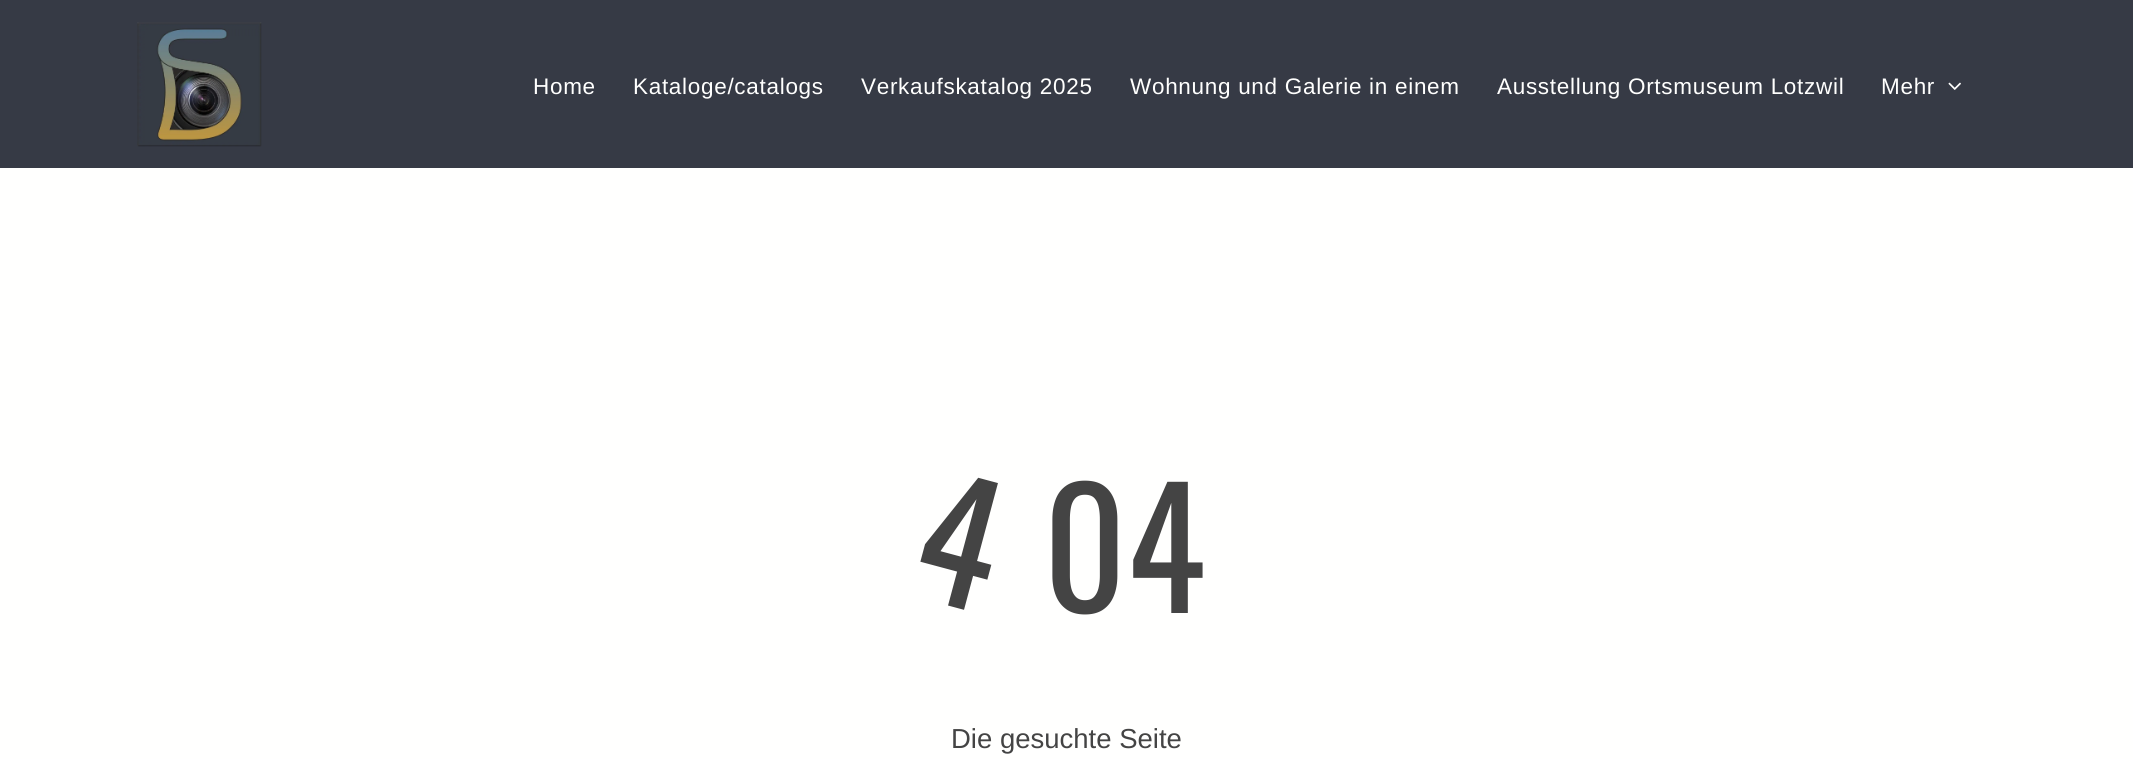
#include <cairo.h>
#include <math.h>
#include <stddef.h>

typedef struct { double x, y; const char *s; } line_t;

static void ink(cairo_t *ctx, unsigned color) {
    cairo_set_source_rgb(ctx, (color >> 16) / 255.0, (color >> 8 & 255) / 255.0, (color & 255) / 255.0);
}

static void write_spaced(cairo_t *ctx, double x, double y, const char *s, double letter, double word) {
    cairo_move_to(ctx, x, y);
    while (*s) {
        char ch[5] = {0};
        int n = 0;
        do ch[n++] = *s++; while ((*s & 0xC0) == 0x80);
        cairo_show_text(ctx, ch);
        cairo_rel_move_to(ctx, letter + word * (*ch == ' '), 0);
    }
}

static void paste(cairo_t *ctx, const char *path, double x, double y, double w, double h) {
    cairo_surface_t *image = cairo_image_surface_create_from_png(path);
    cairo_save(ctx);
    cairo_set_source_surface(ctx, image, x, y);
    cairo_rectangle(ctx, x, y, w, h);
    cairo_fill(ctx);
    cairo_restore(ctx);
    cairo_surface_destroy(image);
}

int main(void) {
    cairo_surface_t *surface = cairo_image_surface_create(CAIRO_FORMAT_RGB24, 2133, 759);
    cairo_t *ctx = cairo_create(surface);
    cairo_font_options_t *options = cairo_font_options_create();
    cairo_font_options_set_hint_metrics(options, CAIRO_HINT_METRICS_OFF);
    cairo_font_options_set_hint_style(options, CAIRO_HINT_STYLE_NONE);
    cairo_set_font_options(ctx, options);
    cairo_set_miter_limit(ctx, 4);
    ink(ctx, 0xFFFFFE);
    cairo_paint(ctx);
    ink(ctx, 0x363A45);
    cairo_rectangle(ctx, 0, 0, 2133, 168);
    cairo_fill(ctx);
    paste(ctx, "media/1.png", 137, 22, 125, 125);
    cairo_select_font_face(ctx, "Liberation Sans", CAIRO_FONT_SLANT_NORMAL, CAIRO_FONT_WEIGHT_NORMAL);
    cairo_set_font_size(ctx, 22.5);
    ink(ctx, 0xFFFFFE);
    {
        static const line_t items[] = {
            {533, 94, "Home"},
            {633, 94, "Kataloge/catalogs"},
            {861, 94, "Verkaufskatalog 2025"},
            {1130, 94, "Wohnung und Galerie in einem"},
            {1497, 94, "Ausstellung Ortsmuseum Lotzwil"},
            {1881, 94, "Mehr"},
        };
        for (size_t i = 0; i < sizeof items / sizeof *items; i++) {
            write_spaced(ctx, items[i].x, items[i].y, items[i].s, 0.7, 0);
        }
    }
    paste(ctx, "media/2.png", 1948, 82, 13, 8);
    cairo_select_font_face(ctx, "Oswald", CAIRO_FONT_SLANT_NORMAL, CAIRO_FONT_WEIGHT_NORMAL);
    cairo_set_font_size(ctx, 162);
    ink(ctx, 0x444444);
    cairo_save(ctx);
    cairo_translate(ctx, 905, 594);
    cairo_rotate(ctx, 15 * M_PI / 180);
    cairo_move_to(ctx, 0, 0);
    cairo_show_text(ctx, "4");
    cairo_restore(ctx);
    cairo_move_to(ctx, 1043, 613);
    cairo_show_text(ctx, "04");
    cairo_select_font_face(ctx, "Liberation Sans", CAIRO_FONT_SLANT_NORMAL, CAIRO_FONT_WEIGHT_NORMAL);
    cairo_set_font_size(ctx, 27.5);
    cairo_move_to(ctx, 951, 748);
    cairo_show_text(ctx, "Die gesuchte Seite");
    cairo_surface_write_to_png(surface, "image.png");
    cairo_font_options_destroy(options);
    cairo_destroy(ctx);
    cairo_surface_destroy(surface);
    return 0;
}
